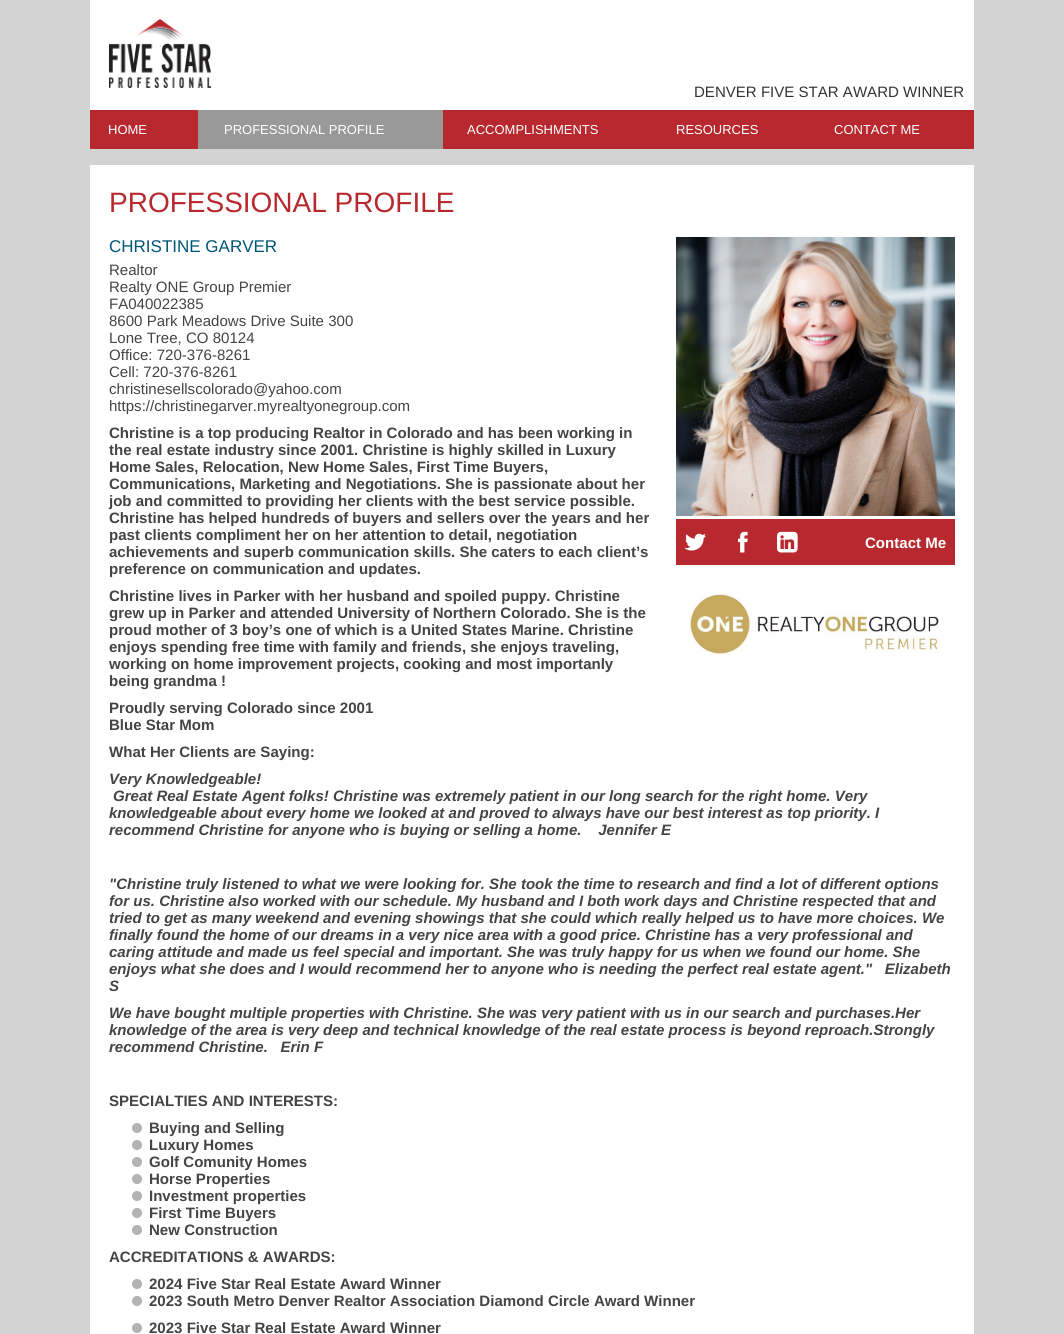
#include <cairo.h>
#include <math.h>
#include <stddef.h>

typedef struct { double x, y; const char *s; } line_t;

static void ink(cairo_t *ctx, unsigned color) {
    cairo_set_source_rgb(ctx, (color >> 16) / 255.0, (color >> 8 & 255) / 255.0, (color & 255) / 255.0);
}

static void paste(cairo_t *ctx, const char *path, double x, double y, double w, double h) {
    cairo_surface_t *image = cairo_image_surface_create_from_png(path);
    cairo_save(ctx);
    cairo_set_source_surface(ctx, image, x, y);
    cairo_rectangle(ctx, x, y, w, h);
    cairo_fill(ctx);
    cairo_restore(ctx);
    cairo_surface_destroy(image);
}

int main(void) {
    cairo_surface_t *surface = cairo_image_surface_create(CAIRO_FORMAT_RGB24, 1064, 1334);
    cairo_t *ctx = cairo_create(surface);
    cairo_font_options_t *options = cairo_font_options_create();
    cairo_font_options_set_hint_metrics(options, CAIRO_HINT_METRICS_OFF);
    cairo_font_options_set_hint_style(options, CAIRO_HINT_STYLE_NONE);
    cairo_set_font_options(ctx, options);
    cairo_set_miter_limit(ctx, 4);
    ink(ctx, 0xD3D3D3);
    cairo_paint(ctx);
    ink(ctx, 0xFFFFFF);
    cairo_rectangle(ctx, 90, 0, 884, 110);
    cairo_fill(ctx);
    paste(ctx, "media/1.png", 109, 19, 102, 69);
    cairo_select_font_face(ctx, "Liberation Sans", CAIRO_FONT_SLANT_NORMAL, CAIRO_FONT_WEIGHT_NORMAL);
    cairo_set_font_size(ctx, 15.05);
    ink(ctx, 0x333333);
    cairo_move_to(ctx, 694, 97);
    cairo_show_text(ctx, "DENVER FIVE STAR AWARD WINNER");
    ink(ctx, 0xB8292F);
    cairo_rectangle(ctx, 90, 110, 884, 39);
    cairo_fill(ctx);
    cairo_set_font_size(ctx, 13);
    ink(ctx, 0xFFFFFF);
    cairo_move_to(ctx, 108, 134);
    cairo_show_text(ctx, "HOME");
    ink(ctx, 0x999999);
    cairo_rectangle(ctx, 198, 110, 245, 39);
    cairo_fill(ctx);
    ink(ctx, 0xFFFFFF);
    {
        static const line_t items[] = {
            {224, 134, "PROFESSIONAL PROFILE"},
            {467, 134, "ACCOMPLISHMENTS"},
            {676, 134, "RESOURCES"},
            {834, 134, "CONTACT ME"},
        };
        for (size_t i = 0; i < sizeof items / sizeof *items; i++) {
            cairo_move_to(ctx, items[i].x, items[i].y);
            cairo_show_text(ctx, items[i].s);
        }
    }
    cairo_rectangle(ctx, 90, 165, 884, 1169);
    cairo_fill(ctx);
    cairo_set_font_size(ctx, 28);
    ink(ctx, 0xB8292F);
    cairo_move_to(ctx, 109, 212);
    cairo_show_text(ctx, "PROFESSIONAL PROFILE");
    cairo_set_font_size(ctx, 17);
    ink(ctx, 0x005577);
    cairo_move_to(ctx, 109, 252);
    cairo_show_text(ctx, "CHRISTINE GARVER");
    cairo_set_font_size(ctx, 15.05);
    ink(ctx, 0x444444);
    {
        static const line_t items[] = {
            {109, 275, "Realtor"},
            {109, 292, "Realty ONE Group Premier"},
            {109, 309, "FA040022385"},
            {109, 326, "8600 Park Meadows Drive Suite 300"},
            {109, 343, "Lone Tree, CO 80124"},
            {109, 360, "Office: 720-376-8261"},
            {109, 377, "Cell: 720-376-8261"},
            {109, 394, "christinesellscolorado@yahoo.com"},
            {109, 411, "https://christinegarver.myrealtyonegroup.com"},
        };
        for (size_t i = 0; i < sizeof items / sizeof *items; i++) {
            cairo_move_to(ctx, items[i].x, items[i].y);
            cairo_show_text(ctx, items[i].s);
        }
    }
    cairo_select_font_face(ctx, "Liberation Sans", CAIRO_FONT_SLANT_NORMAL, CAIRO_FONT_WEIGHT_BOLD);
    {
        static const line_t items[] = {
            {109, 438, "Christine is a top producing Realtor in Colorado and has been working in"},
            {109, 455, "the real estate industry since 2001. Christine is highly skilled in Luxury"},
            {109, 472, "Home Sales, Relocation, New Home Sales, First Time Buyers,"},
            {109, 489, "Communications, Marketing and Negotiations. She is passionate about her"},
            {109, 506, "job and committed to providing her clients with the best service possible."},
            {109, 523, "Christine has helped hundreds of buyers and sellers over the years and her"},
            {109, 540, "past clients compliment her on her attention to detail, negotiation"},
            {109, 557, "achievements and superb communication skills. She caters to each client’s"},
            {109, 574, "preference on communication and updates."},
        };
        for (size_t i = 0; i < sizeof items / sizeof *items; i++) {
            cairo_move_to(ctx, items[i].x, items[i].y);
            cairo_show_text(ctx, items[i].s);
        }
    }
    paste(ctx, "media/2.png", 676, 237, 279, 279);
    ink(ctx, 0xB8292F);
    cairo_rectangle(ctx, 676, 519, 279, 46);
    cairo_fill(ctx);
    paste(ctx, "media/3.png", 685, 533, 21, 18);
    paste(ctx, "media/4.png", 738, 531, 10, 22);
    paste(ctx, "media/5.png", 777, 531, 21, 22);
    ink(ctx, 0xFFFFFF);
    cairo_move_to(ctx, 865, 548);
    cairo_show_text(ctx, "Contact Me");
    paste(ctx, "media/6.png", 687, 591, 255, 66);
    ink(ctx, 0x444444);
    {
        static const line_t items[] = {
            {109, 601, "Christine lives in Parker with her husband and spoiled puppy. Christine"},
            {109, 618, "grew up in Parker and attended University of Northern Colorado. She is the"},
            {109, 635, "proud mother of 3 boy’s one of which is a United States Marine. Christine"},
            {109, 652, "enjoys spending free time with family and friends, she enjoys traveling,"},
            {109, 669, "working on home improvement projects, cooking and most importanly"},
            {109, 686, "being grandma !"},
            {109, 713, "Proudly serving Colorado since 2001"},
            {109, 730, "Blue Star Mom"},
            {109, 757, "What Her Clients are Saying:"},
        };
        for (size_t i = 0; i < sizeof items / sizeof *items; i++) {
            cairo_move_to(ctx, items[i].x, items[i].y);
            cairo_show_text(ctx, items[i].s);
        }
    }
    cairo_select_font_face(ctx, "Liberation Sans", CAIRO_FONT_SLANT_ITALIC, CAIRO_FONT_WEIGHT_BOLD);
    {
        static const line_t items[] = {
            {109, 784, "Very Knowledgeable!"},
            {113, 801, "Great Real Estate Agent folks! Christine was extremely patient in our long search for the right home. Very"},
            {109, 818, "knowledgeable about every home we looked at and proved to always have our best interest as top priority. I"},
            {109, 835, "recommend Christine for anyone who is buying or selling a home.    Jennifer E"},
            {109, 889, "\"Christine truly listened to what we were looking for. She took the time to research and find a lot of different options"},
            {109, 906, "for us. Christine also worked with our schedule. My husband and I both work days and Christine respected that and"},
            {109, 923, "tried to get as many weekend and evening showings that she could which really helped us to have more choices. We"},
            {109, 940, "finally found the home of our dreams in a very nice area with a good price. Christine has a very professional and"},
            {109, 957, "caring attitude and made us feel special and important. She was truly happy for us when we found our home. She"},
            {109, 974, "enjoys what she does and I would recommend her to anyone who is needing the perfect real estate agent.\"   Elizabeth"},
            {109, 991, "S"},
            {109, 1018, "We have bought multiple properties with Christine. She was very patient with us in our search and purchases.Her"},
            {109, 1035, "knowledge of the area is very deep and technical knowledge of the real estate process is beyond reproach.Strongly"},
            {109, 1052, "recommend Christine.   Erin F"},
        };
        for (size_t i = 0; i < sizeof items / sizeof *items; i++) {
            cairo_move_to(ctx, items[i].x, items[i].y);
            cairo_show_text(ctx, items[i].s);
        }
    }
    cairo_select_font_face(ctx, "Liberation Sans", CAIRO_FONT_SLANT_NORMAL, CAIRO_FONT_WEIGHT_BOLD);
    cairo_move_to(ctx, 109, 1106);
    cairo_show_text(ctx, "SPECIALTIES AND INTERESTS:");
    paste(ctx, "media/7.png", 132, 1123, 10, 10);
    cairo_move_to(ctx, 149, 1133);
    cairo_show_text(ctx, "Buying and Selling");
    paste(ctx, "media/7.png", 132, 1140, 10, 10);
    cairo_move_to(ctx, 149, 1150);
    cairo_show_text(ctx, "Luxury Homes");
    paste(ctx, "media/7.png", 132, 1157, 10, 10);
    cairo_move_to(ctx, 149, 1167);
    cairo_show_text(ctx, "Golf Comunity Homes");
    paste(ctx, "media/7.png", 132, 1174, 10, 10);
    cairo_move_to(ctx, 149, 1184);
    cairo_show_text(ctx, "Horse Properties");
    paste(ctx, "media/7.png", 132, 1191, 10, 10);
    cairo_move_to(ctx, 149, 1201);
    cairo_show_text(ctx, "Investment properties");
    paste(ctx, "media/7.png", 132, 1208, 10, 10);
    cairo_move_to(ctx, 149, 1218);
    cairo_show_text(ctx, "First Time Buyers");
    paste(ctx, "media/7.png", 132, 1225, 10, 10);
    cairo_move_to(ctx, 149, 1235);
    cairo_show_text(ctx, "New Construction");
    cairo_move_to(ctx, 109, 1262);
    cairo_show_text(ctx, "ACCREDITATIONS & AWARDS:");
    paste(ctx, "media/7.png", 132, 1279, 10, 10);
    cairo_move_to(ctx, 149, 1289);
    cairo_show_text(ctx, "2024 Five Star Real Estate Award Winner");
    paste(ctx, "media/7.png", 132, 1296, 10, 10);
    cairo_move_to(ctx, 149, 1306);
    cairo_show_text(ctx, "2023 South Metro Denver Realtor Association Diamond Circle Award Winner");
    paste(ctx, "media/7.png", 132, 1323, 10, 10);
    cairo_move_to(ctx, 149, 1333);
    cairo_show_text(ctx, "2023 Five Star Real Estate Award Winner");
    cairo_surface_write_to_png(surface, "image.png");
    cairo_font_options_destroy(options);
    cairo_destroy(ctx);
    cairo_surface_destroy(surface);
    return 0;
}
